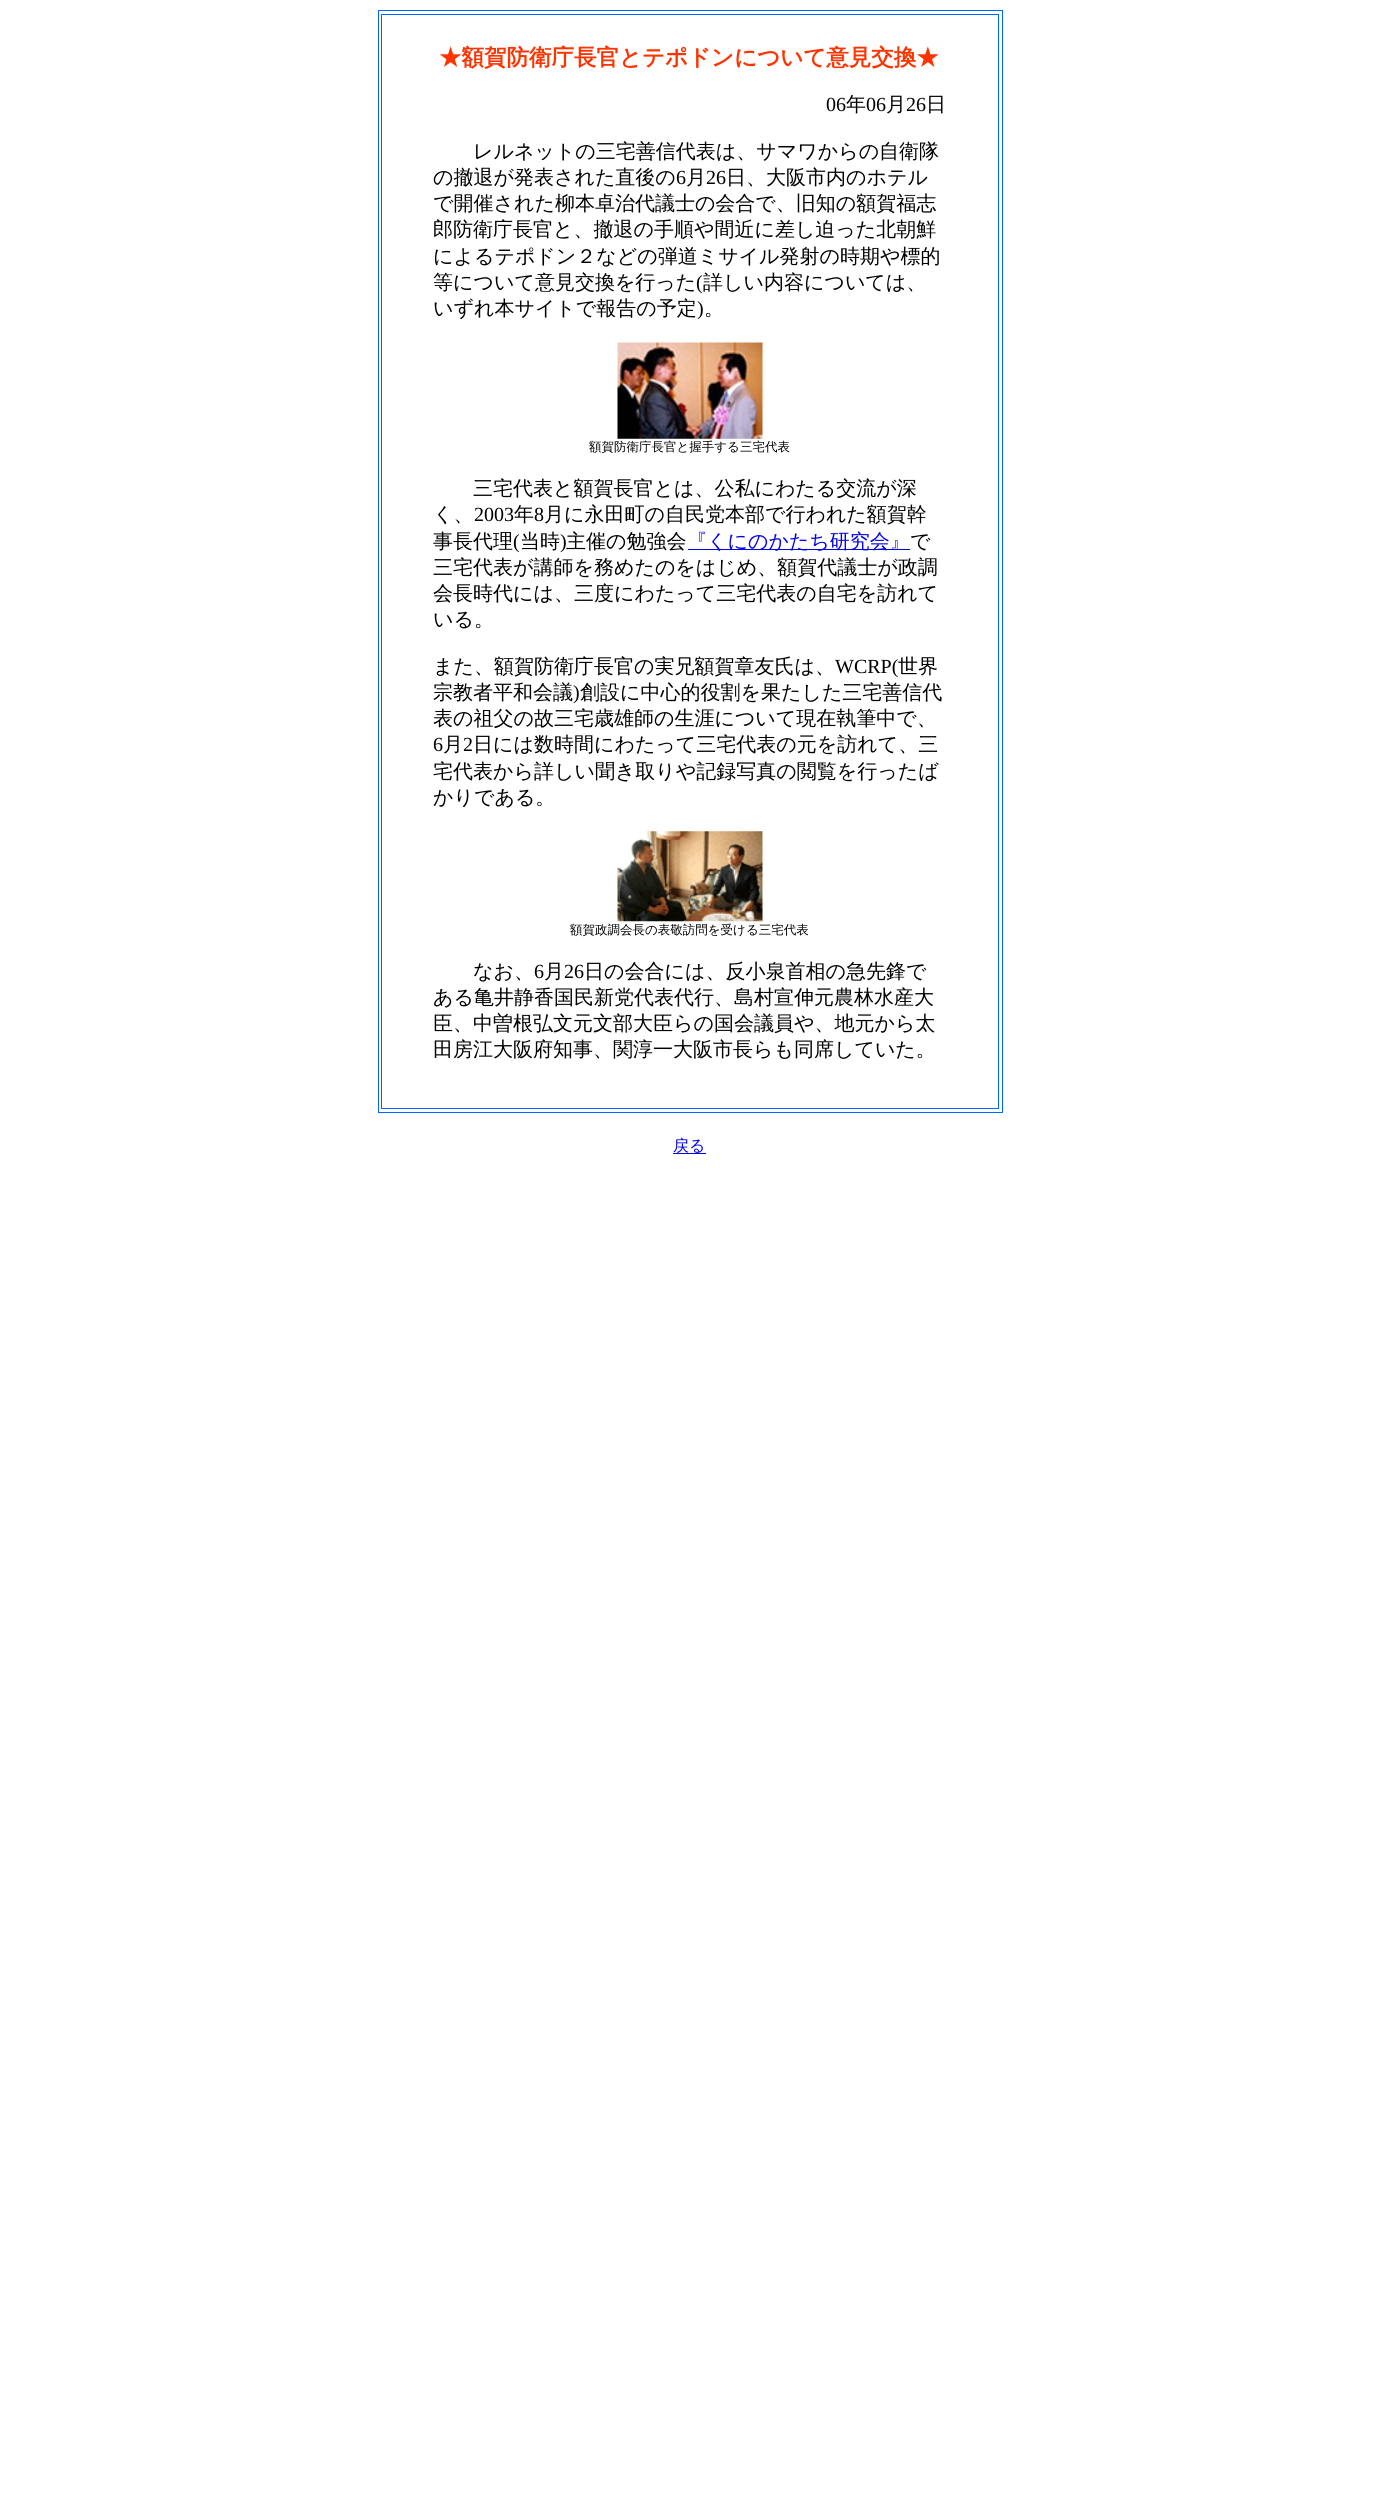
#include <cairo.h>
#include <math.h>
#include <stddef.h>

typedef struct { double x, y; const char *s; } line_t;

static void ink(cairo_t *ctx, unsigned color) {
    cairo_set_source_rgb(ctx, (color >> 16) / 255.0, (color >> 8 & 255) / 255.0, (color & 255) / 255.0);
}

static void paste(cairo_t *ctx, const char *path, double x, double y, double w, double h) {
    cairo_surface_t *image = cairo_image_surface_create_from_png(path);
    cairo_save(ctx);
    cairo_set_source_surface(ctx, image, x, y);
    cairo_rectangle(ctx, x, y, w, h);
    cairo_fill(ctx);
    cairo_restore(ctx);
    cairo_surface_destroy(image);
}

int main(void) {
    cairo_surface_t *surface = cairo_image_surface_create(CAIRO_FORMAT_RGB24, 1378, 2516);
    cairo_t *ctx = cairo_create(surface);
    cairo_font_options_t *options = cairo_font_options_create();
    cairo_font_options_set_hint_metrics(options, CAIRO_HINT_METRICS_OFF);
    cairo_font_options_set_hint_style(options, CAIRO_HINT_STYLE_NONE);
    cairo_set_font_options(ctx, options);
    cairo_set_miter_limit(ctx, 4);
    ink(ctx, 0xFFFFFF);
    cairo_paint(ctx);
    cairo_rectangle(ctx, 378.5, 10.5, 624, 1102);
    ink(ctx, 0x0066FF);
    cairo_set_line_width(ctx, 1);
    cairo_stroke(ctx);
    cairo_rectangle(ctx, 381.5, 14.5, 617, 1094);
    cairo_stroke(ctx);
    cairo_select_font_face(ctx, "WenQuanYi Zen Hei", CAIRO_FONT_SLANT_NORMAL, CAIRO_FONT_WEIGHT_BOLD);
    cairo_set_font_size(ctx, 22.5);
    ink(ctx, 0xFF3300);
    cairo_move_to(ctx, 439, 65);
    cairo_show_text(ctx, "★額賀防衛庁長官とテポドンについて意見交換★");
    cairo_select_font_face(ctx, "Liberation Serif", CAIRO_FONT_SLANT_NORMAL, CAIRO_FONT_WEIGHT_NORMAL);
    cairo_set_font_size(ctx, 20);
    ink(ctx, 0x000000);
    cairo_move_to(ctx, 826, 111);
    cairo_show_text(ctx, "06");
    cairo_select_font_face(ctx, "WenQuanYi Zen Hei Medium", CAIRO_FONT_SLANT_NORMAL, CAIRO_FONT_WEIGHT_NORMAL);
    cairo_move_to(ctx, 846, 111);
    cairo_show_text(ctx, "年");
    cairo_select_font_face(ctx, "Liberation Serif", CAIRO_FONT_SLANT_NORMAL, CAIRO_FONT_WEIGHT_NORMAL);
    cairo_move_to(ctx, 866, 111);
    cairo_show_text(ctx, "06");
    cairo_select_font_face(ctx, "WenQuanYi Zen Hei Medium", CAIRO_FONT_SLANT_NORMAL, CAIRO_FONT_WEIGHT_NORMAL);
    cairo_move_to(ctx, 886, 111);
    cairo_show_text(ctx, "月");
    cairo_select_font_face(ctx, "Liberation Serif", CAIRO_FONT_SLANT_NORMAL, CAIRO_FONT_WEIGHT_NORMAL);
    cairo_move_to(ctx, 906, 111);
    cairo_show_text(ctx, "26");
    cairo_select_font_face(ctx, "WenQuanYi Zen Hei Medium", CAIRO_FONT_SLANT_NORMAL, CAIRO_FONT_WEIGHT_NORMAL);
    {
        static const line_t items[] = {
            {926, 111, "日"},
            {473, 158, "レルネットの三宅善信代表は、サマワからの自衛隊"},
            {433, 184, "の撤退が発表された直後の"},
        };
        for (size_t i = 0; i < sizeof items / sizeof *items; i++) {
            cairo_move_to(ctx, items[i].x, items[i].y);
            cairo_show_text(ctx, items[i].s);
        }
    }
    cairo_select_font_face(ctx, "Liberation Serif", CAIRO_FONT_SLANT_NORMAL, CAIRO_FONT_WEIGHT_NORMAL);
    cairo_move_to(ctx, 676, 184);
    cairo_show_text(ctx, "6");
    cairo_select_font_face(ctx, "WenQuanYi Zen Hei Medium", CAIRO_FONT_SLANT_NORMAL, CAIRO_FONT_WEIGHT_NORMAL);
    cairo_move_to(ctx, 686, 184);
    cairo_show_text(ctx, "月");
    cairo_select_font_face(ctx, "Liberation Serif", CAIRO_FONT_SLANT_NORMAL, CAIRO_FONT_WEIGHT_NORMAL);
    cairo_move_to(ctx, 706, 184);
    cairo_show_text(ctx, "26");
    cairo_select_font_face(ctx, "WenQuanYi Zen Hei Medium", CAIRO_FONT_SLANT_NORMAL, CAIRO_FONT_WEIGHT_NORMAL);
    {
        static const line_t items[] = {
            {726, 184, "日、大阪市内のホテル"},
            {433, 210, "で開催された柳本卓治代議士の会合で、旧知の額賀福志"},
            {433, 236, "郎防衛庁長官と、撤退の手順や間近に差し迫った北朝鮮"},
            {433, 263, "によるテポドン２などの弾道ミサイル発射の時期や標的"},
            {433, 289, "等について意見交換を行った"},
        };
        for (size_t i = 0; i < sizeof items / sizeof *items; i++) {
            cairo_move_to(ctx, items[i].x, items[i].y);
            cairo_show_text(ctx, items[i].s);
        }
    }
    cairo_select_font_face(ctx, "Liberation Serif", CAIRO_FONT_SLANT_NORMAL, CAIRO_FONT_WEIGHT_NORMAL);
    cairo_move_to(ctx, 696, 289);
    cairo_show_text(ctx, "(");
    cairo_select_font_face(ctx, "WenQuanYi Zen Hei Medium", CAIRO_FONT_SLANT_NORMAL, CAIRO_FONT_WEIGHT_NORMAL);
    cairo_move_to(ctx, 703, 289);
    cairo_show_text(ctx, "詳しい内容については、");
    cairo_move_to(ctx, 433, 315);
    cairo_show_text(ctx, "いずれ本サイトで報告の予定");
    cairo_select_font_face(ctx, "Liberation Serif", CAIRO_FONT_SLANT_NORMAL, CAIRO_FONT_WEIGHT_NORMAL);
    cairo_move_to(ctx, 697, 315);
    cairo_show_text(ctx, ")");
    cairo_select_font_face(ctx, "WenQuanYi Zen Hei Medium", CAIRO_FONT_SLANT_NORMAL, CAIRO_FONT_WEIGHT_NORMAL);
    cairo_move_to(ctx, 704, 315);
    cairo_show_text(ctx, "。");
    paste(ctx, "media/1.png", 617, 342, 146, 97);
    cairo_set_font_size(ctx, 12.5);
    cairo_move_to(ctx, 589, 451);
    cairo_show_text(ctx, "額賀防衛庁長官と握手する三宅代表");
    cairo_set_font_size(ctx, 20);
    cairo_move_to(ctx, 473, 495);
    cairo_show_text(ctx, "三宅代表と額賀長官とは、公私にわたる交流が深");
    cairo_move_to(ctx, 433, 521);
    cairo_show_text(ctx, "く、");
    cairo_select_font_face(ctx, "Liberation Serif", CAIRO_FONT_SLANT_NORMAL, CAIRO_FONT_WEIGHT_NORMAL);
    cairo_move_to(ctx, 474, 521);
    cairo_show_text(ctx, "2003");
    cairo_select_font_face(ctx, "WenQuanYi Zen Hei Medium", CAIRO_FONT_SLANT_NORMAL, CAIRO_FONT_WEIGHT_NORMAL);
    cairo_move_to(ctx, 514, 521);
    cairo_show_text(ctx, "年");
    cairo_select_font_face(ctx, "Liberation Serif", CAIRO_FONT_SLANT_NORMAL, CAIRO_FONT_WEIGHT_NORMAL);
    cairo_move_to(ctx, 534, 521);
    cairo_show_text(ctx, "8");
    cairo_select_font_face(ctx, "WenQuanYi Zen Hei Medium", CAIRO_FONT_SLANT_NORMAL, CAIRO_FONT_WEIGHT_NORMAL);
    cairo_move_to(ctx, 544, 521);
    cairo_show_text(ctx, "月に永田町の自民党本部で行われた額賀幹");
    cairo_move_to(ctx, 433, 548);
    cairo_show_text(ctx, "事長代理");
    cairo_select_font_face(ctx, "Liberation Serif", CAIRO_FONT_SLANT_NORMAL, CAIRO_FONT_WEIGHT_NORMAL);
    cairo_move_to(ctx, 513, 548);
    cairo_show_text(ctx, "(");
    cairo_select_font_face(ctx, "WenQuanYi Zen Hei Medium", CAIRO_FONT_SLANT_NORMAL, CAIRO_FONT_WEIGHT_NORMAL);
    cairo_move_to(ctx, 520, 548);
    cairo_show_text(ctx, "当時");
    cairo_select_font_face(ctx, "Liberation Serif", CAIRO_FONT_SLANT_NORMAL, CAIRO_FONT_WEIGHT_NORMAL);
    cairo_move_to(ctx, 560, 548);
    cairo_show_text(ctx, ")");
    cairo_select_font_face(ctx, "WenQuanYi Zen Hei Medium", CAIRO_FONT_SLANT_NORMAL, CAIRO_FONT_WEIGHT_NORMAL);
    cairo_move_to(ctx, 566, 548);
    cairo_show_text(ctx, "主催の勉強会");
    ink(ctx, 0x0000EE);
    cairo_rectangle(ctx, 688, 549, 222, 1);
    cairo_fill(ctx);
    cairo_move_to(ctx, 687, 548);
    cairo_show_text(ctx, "『くにのかたち研究会』");
    ink(ctx, 0x000000);
    {
        static const line_t items[] = {
            {910, 548, "で"},
            {433, 574, "三宅代表が講師を務めたのをはじめ、額賀代議士が政調"},
            {433, 600, "会長時代には、三度にわたって三宅代表の自宅を訪れて"},
            {433, 626, "いる。"},
            {433, 673, "また、額賀防衛庁長官の実兄額賀章友氏は、"},
        };
        for (size_t i = 0; i < sizeof items / sizeof *items; i++) {
            cairo_move_to(ctx, items[i].x, items[i].y);
            cairo_show_text(ctx, items[i].s);
        }
    }
    cairo_select_font_face(ctx, "Liberation Serif", CAIRO_FONT_SLANT_NORMAL, CAIRO_FONT_WEIGHT_NORMAL);
    cairo_move_to(ctx, 835, 673);
    cairo_show_text(ctx, "WCRP(");
    cairo_select_font_face(ctx, "WenQuanYi Zen Hei Medium", CAIRO_FONT_SLANT_NORMAL, CAIRO_FONT_WEIGHT_NORMAL);
    cairo_move_to(ctx, 898, 673);
    cairo_show_text(ctx, "世界");
    cairo_move_to(ctx, 433, 699);
    cairo_show_text(ctx, "宗教者平和会議");
    cairo_select_font_face(ctx, "Liberation Serif", CAIRO_FONT_SLANT_NORMAL, CAIRO_FONT_WEIGHT_NORMAL);
    cairo_move_to(ctx, 573, 699);
    cairo_show_text(ctx, ")");
    cairo_select_font_face(ctx, "WenQuanYi Zen Hei Medium", CAIRO_FONT_SLANT_NORMAL, CAIRO_FONT_WEIGHT_NORMAL);
    cairo_move_to(ctx, 580, 699);
    cairo_show_text(ctx, "創設に中心的役割を果たした三宅善信代");
    cairo_move_to(ctx, 433, 725);
    cairo_show_text(ctx, "表の祖父の故三宅歳雄師の生涯について現在執筆中で、");
    cairo_select_font_face(ctx, "Liberation Serif", CAIRO_FONT_SLANT_NORMAL, CAIRO_FONT_WEIGHT_NORMAL);
    cairo_move_to(ctx, 433, 751);
    cairo_show_text(ctx, "6");
    cairo_select_font_face(ctx, "WenQuanYi Zen Hei Medium", CAIRO_FONT_SLANT_NORMAL, CAIRO_FONT_WEIGHT_NORMAL);
    cairo_move_to(ctx, 443, 751);
    cairo_show_text(ctx, "月");
    cairo_select_font_face(ctx, "Liberation Serif", CAIRO_FONT_SLANT_NORMAL, CAIRO_FONT_WEIGHT_NORMAL);
    cairo_move_to(ctx, 463, 751);
    cairo_show_text(ctx, "2");
    cairo_select_font_face(ctx, "WenQuanYi Zen Hei Medium", CAIRO_FONT_SLANT_NORMAL, CAIRO_FONT_WEIGHT_NORMAL);
    {
        static const line_t items[] = {
            {473, 751, "日には数時間にわたって三宅代表の元を訪れて、三"},
            {433, 778, "宅代表から詳しい聞き取りや記録写真の閲覧を行ったば"},
            {433, 804, "かりである。"},
        };
        for (size_t i = 0; i < sizeof items / sizeof *items; i++) {
            cairo_move_to(ctx, items[i].x, items[i].y);
            cairo_show_text(ctx, items[i].s);
        }
    }
    paste(ctx, "media/2.png", 617, 831, 146, 91);
    cairo_set_font_size(ctx, 12.5);
    cairo_move_to(ctx, 570, 934);
    cairo_show_text(ctx, "額賀政調会長の表敬訪問を受ける三宅代表");
    cairo_set_font_size(ctx, 20);
    cairo_move_to(ctx, 473, 978);
    cairo_show_text(ctx, "なお、");
    cairo_select_font_face(ctx, "Liberation Serif", CAIRO_FONT_SLANT_NORMAL, CAIRO_FONT_WEIGHT_NORMAL);
    cairo_move_to(ctx, 534, 978);
    cairo_show_text(ctx, "6");
    cairo_select_font_face(ctx, "WenQuanYi Zen Hei Medium", CAIRO_FONT_SLANT_NORMAL, CAIRO_FONT_WEIGHT_NORMAL);
    cairo_move_to(ctx, 544, 978);
    cairo_show_text(ctx, "月");
    cairo_select_font_face(ctx, "Liberation Serif", CAIRO_FONT_SLANT_NORMAL, CAIRO_FONT_WEIGHT_NORMAL);
    cairo_move_to(ctx, 564, 978);
    cairo_show_text(ctx, "26");
    cairo_select_font_face(ctx, "WenQuanYi Zen Hei Medium", CAIRO_FONT_SLANT_NORMAL, CAIRO_FONT_WEIGHT_NORMAL);
    {
        static const line_t items[] = {
            {584, 978, "日の会合には、反小泉首相の急先鋒で"},
            {433, 1004, "ある亀井静香国民新党代表代行、島村宣伸元農林水産大"},
            {433, 1030, "臣、中曽根弘文元文部大臣らの国会議員や、地元から太"},
            {433, 1056, "田房江大阪府知事、関淳一大阪市長らも同席していた。"},
        };
        for (size_t i = 0; i < sizeof items / sizeof *items; i++) {
            cairo_move_to(ctx, items[i].x, items[i].y);
            cairo_show_text(ctx, items[i].s);
        }
    }
    ink(ctx, 0x0000EE);
    cairo_rectangle(ctx, 673, 1153, 33, 1);
    cairo_fill(ctx);
    cairo_set_font_size(ctx, 16);
    cairo_move_to(ctx, 673, 1151);
    cairo_show_text(ctx, "戻る");
    cairo_surface_write_to_png(surface, "image.png");
    cairo_font_options_destroy(options);
    cairo_destroy(ctx);
    cairo_surface_destroy(surface);
    return 0;
}
